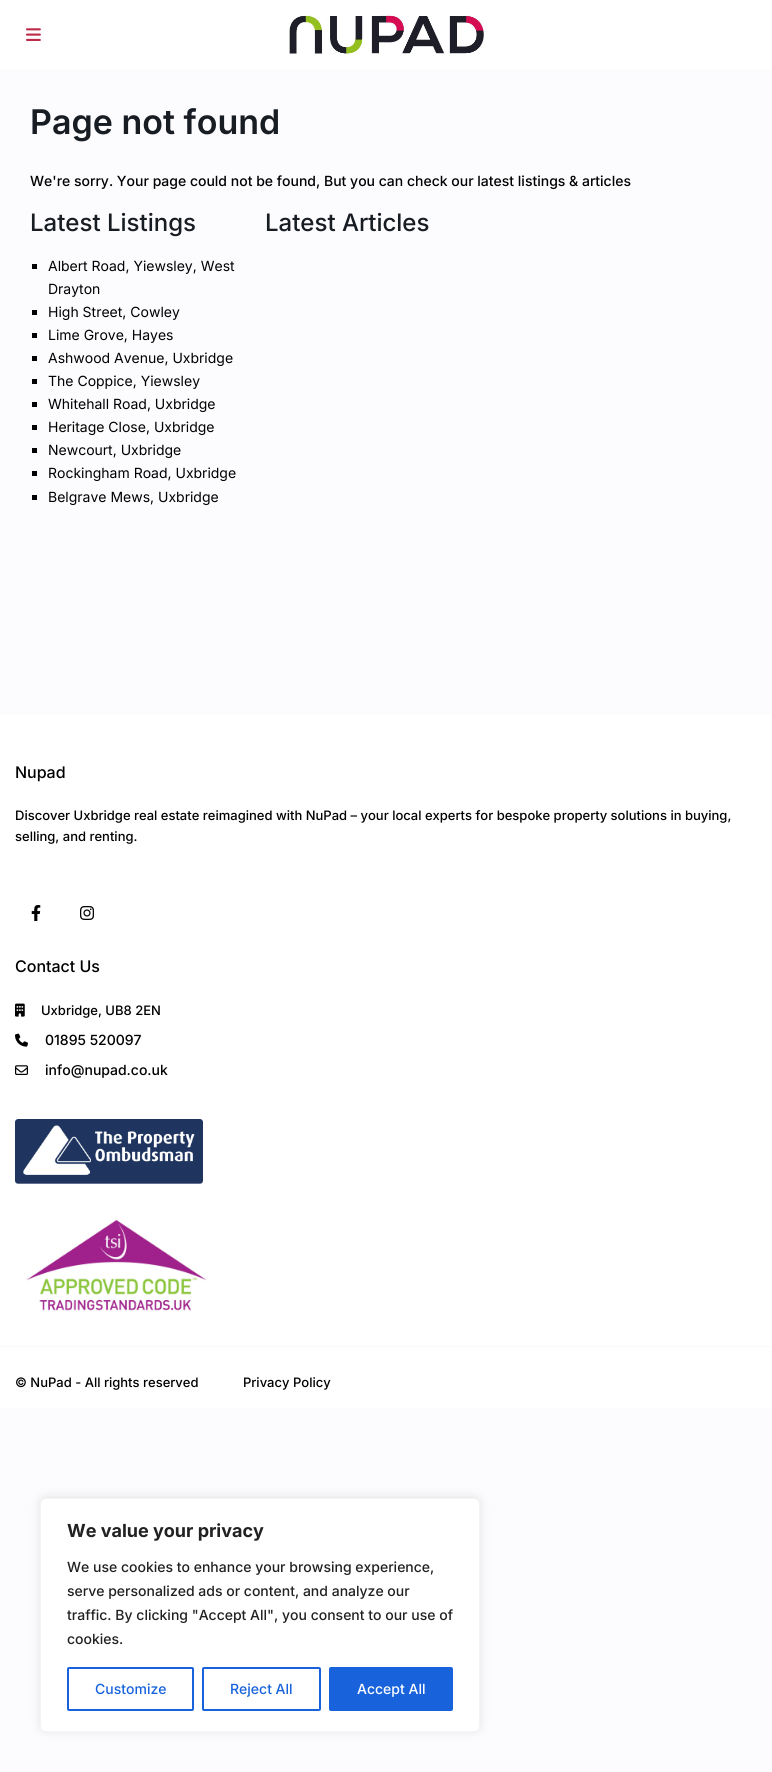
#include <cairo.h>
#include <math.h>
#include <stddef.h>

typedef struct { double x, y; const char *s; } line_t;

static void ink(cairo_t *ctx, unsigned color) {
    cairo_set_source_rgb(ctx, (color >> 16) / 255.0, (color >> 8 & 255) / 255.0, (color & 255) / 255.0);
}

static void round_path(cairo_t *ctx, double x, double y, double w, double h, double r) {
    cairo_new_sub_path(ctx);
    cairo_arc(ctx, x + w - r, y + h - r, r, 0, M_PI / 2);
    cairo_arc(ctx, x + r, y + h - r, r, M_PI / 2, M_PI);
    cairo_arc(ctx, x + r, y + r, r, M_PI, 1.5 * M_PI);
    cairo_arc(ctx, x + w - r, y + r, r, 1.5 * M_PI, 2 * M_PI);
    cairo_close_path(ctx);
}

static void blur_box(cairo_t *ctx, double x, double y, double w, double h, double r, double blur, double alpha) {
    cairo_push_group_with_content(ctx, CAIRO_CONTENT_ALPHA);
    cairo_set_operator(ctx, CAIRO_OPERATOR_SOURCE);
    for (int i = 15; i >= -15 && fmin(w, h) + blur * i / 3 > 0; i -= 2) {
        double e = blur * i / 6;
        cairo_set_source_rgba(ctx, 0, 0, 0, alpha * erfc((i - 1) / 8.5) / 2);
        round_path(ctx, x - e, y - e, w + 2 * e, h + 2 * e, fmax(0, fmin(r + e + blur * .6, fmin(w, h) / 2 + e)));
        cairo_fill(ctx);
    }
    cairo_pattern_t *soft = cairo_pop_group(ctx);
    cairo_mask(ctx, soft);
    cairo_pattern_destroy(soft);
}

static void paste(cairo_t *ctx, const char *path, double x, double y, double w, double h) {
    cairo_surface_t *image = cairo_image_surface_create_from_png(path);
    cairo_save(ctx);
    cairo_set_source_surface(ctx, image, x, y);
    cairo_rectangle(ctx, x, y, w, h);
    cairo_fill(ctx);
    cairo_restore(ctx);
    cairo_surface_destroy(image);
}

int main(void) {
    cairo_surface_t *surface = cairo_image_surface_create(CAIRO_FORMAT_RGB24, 772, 1772);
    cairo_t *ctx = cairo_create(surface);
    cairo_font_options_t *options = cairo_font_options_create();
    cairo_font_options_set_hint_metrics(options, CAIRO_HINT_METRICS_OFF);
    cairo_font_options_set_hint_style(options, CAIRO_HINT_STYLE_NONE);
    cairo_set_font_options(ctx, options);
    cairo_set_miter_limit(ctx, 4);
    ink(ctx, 0xFCFBFD);
    cairo_paint(ctx);
    ink(ctx, 0xFFFFFF);
    cairo_rectangle(ctx, 0, 0, 772, 70);
    cairo_fill(ctx);
    paste(ctx, "media/1.png", 26, 28, 15, 13);
    paste(ctx, "media/2.png", 289, 15, 195, 40);
    cairo_select_font_face(ctx, "Inter SemiBold", CAIRO_FONT_SLANT_NORMAL, CAIRO_FONT_WEIGHT_NORMAL);
    cairo_set_font_size(ctx, 34);
    ink(ctx, 0x181C23);
    cairo_move_to(ctx, 30, 134);
    cairo_show_text(ctx, "Page not found");
    cairo_select_font_face(ctx, "Inter Medium", CAIRO_FONT_SLANT_NORMAL, CAIRO_FONT_WEIGHT_NORMAL);
    cairo_set_font_size(ctx, 14);
    ink(ctx, 0x000000);
    cairo_move_to(ctx, 30, 186);
    cairo_show_text(ctx, "We're sorry. Your page could not be found, But you can check our latest listings & articles");
    cairo_set_font_size(ctx, 24);
    ink(ctx, 0x181C23);
    cairo_move_to(ctx, 30, 231);
    cairo_show_text(ctx, "Latest Listings");
    ink(ctx, 0x000000);
    cairo_rectangle(ctx, 32, 264, 5, 5);
    cairo_fill(ctx);
    cairo_select_font_face(ctx, "Inter", CAIRO_FONT_SLANT_NORMAL, CAIRO_FONT_WEIGHT_NORMAL);
    cairo_set_font_size(ctx, 14);
    cairo_move_to(ctx, 48, 271);
    cairo_show_text(ctx, "Albert Road, Yiewsley, West");
    cairo_move_to(ctx, 48, 294);
    cairo_show_text(ctx, "Drayton");
    cairo_rectangle(ctx, 32, 310, 5, 5);
    cairo_fill(ctx);
    cairo_move_to(ctx, 48, 317);
    cairo_show_text(ctx, "High Street, Cowley");
    cairo_rectangle(ctx, 32, 333, 5, 5);
    cairo_fill(ctx);
    cairo_move_to(ctx, 48, 340);
    cairo_show_text(ctx, "Lime Grove, Hayes");
    cairo_rectangle(ctx, 32, 356, 5, 5);
    cairo_fill(ctx);
    cairo_move_to(ctx, 48, 363);
    cairo_show_text(ctx, "Ashwood Avenue, Uxbridge");
    cairo_rectangle(ctx, 32, 379, 5, 5);
    cairo_fill(ctx);
    cairo_move_to(ctx, 48, 386);
    cairo_show_text(ctx, "The Coppice, Yiewsley");
    cairo_rectangle(ctx, 32, 402, 5, 5);
    cairo_fill(ctx);
    cairo_move_to(ctx, 48, 409);
    cairo_show_text(ctx, "Whitehall Road, Uxbridge");
    cairo_rectangle(ctx, 32, 425, 5, 5);
    cairo_fill(ctx);
    cairo_move_to(ctx, 48, 432);
    cairo_show_text(ctx, "Heritage Close, Uxbridge");
    cairo_rectangle(ctx, 32, 448, 5, 5);
    cairo_fill(ctx);
    cairo_move_to(ctx, 48, 455);
    cairo_show_text(ctx, "Newcourt, Uxbridge");
    cairo_rectangle(ctx, 32, 471, 5, 5);
    cairo_fill(ctx);
    cairo_move_to(ctx, 48, 478);
    cairo_show_text(ctx, "Rockingham Road, Uxbridge");
    cairo_rectangle(ctx, 32, 495, 5, 5);
    cairo_fill(ctx);
    cairo_move_to(ctx, 48, 502);
    cairo_show_text(ctx, "Belgrave Mews, Uxbridge");
    cairo_select_font_face(ctx, "Inter Medium", CAIRO_FONT_SLANT_NORMAL, CAIRO_FONT_WEIGHT_NORMAL);
    cairo_set_font_size(ctx, 24);
    ink(ctx, 0x181C23);
    cairo_move_to(ctx, 265, 231);
    cairo_show_text(ctx, "Latest Articles");
    ink(ctx, 0xFFFFFF);
    cairo_rectangle(ctx, 0, 714, 772, 694);
    cairo_fill(ctx);
    cairo_set_font_size(ctx, 16);
    ink(ctx, 0x000000);
    cairo_move_to(ctx, 15, 778);
    cairo_show_text(ctx, "Nupad");
    cairo_set_font_size(ctx, 13);
    cairo_move_to(ctx, 15, 820);
    cairo_show_text(ctx, "Discover Uxbridge real estate reimagined with NuPad – your local experts for bespoke property solutions in buying,");
    cairo_move_to(ctx, 15, 841);
    cairo_show_text(ctx, "selling, and renting.");
    paste(ctx, "media/3.png", 31, 905, 10, 16);
    paste(ctx, "media/4.png", 80, 906, 14, 14);
    cairo_set_font_size(ctx, 16);
    cairo_move_to(ctx, 15, 972);
    cairo_show_text(ctx, "Contact Us");
    paste(ctx, "media/5.png", 15, 1003, 10, 14);
    cairo_set_font_size(ctx, 13);
    cairo_move_to(ctx, 41, 1015);
    cairo_show_text(ctx, "Uxbridge, UB8 2EN");
    paste(ctx, "media/6.png", 15, 1033, 13, 14);
    cairo_set_font_size(ctx, 14);
    cairo_move_to(ctx, 45, 1045);
    cairo_show_text(ctx, "01895 520097");
    paste(ctx, "media/7.png", 15, 1065, 13, 10);
    cairo_move_to(ctx, 45, 1075);
    cairo_show_text(ctx, "info@nupad.co.uk");
    paste(ctx, "media/8.png", 15, 1119, 188, 65);
    paste(ctx, "media/9.png", 26, 1219, 181, 92);
    ink(ctx, 0xF9F9F9);
    cairo_rectangle(ctx, 0, 1346, 772, 1);
    cairo_fill(ctx);
    cairo_set_font_size(ctx, 13);
    ink(ctx, 0x000000);
    cairo_move_to(ctx, 15, 1387);
    cairo_show_text(ctx, "© NuPad - All rights reserved");
    cairo_move_to(ctx, 243, 1387);
    cairo_show_text(ctx, "Privacy Policy");
    ink(ctx, 0xACABAB);
    blur_box(ctx, 40, 1497, 440, 234, 6, 5, 0.3);
    ink(ctx, 0xFFFFFF);
    round_path(ctx, 40.5, 1498.5, 439, 233, 5.5);
    cairo_fill_preserve(ctx);
    ink(ctx, 0xF4F4F4);
    cairo_set_line_width(ctx, 1);
    cairo_stroke(ctx);
    cairo_select_font_face(ctx, "Inter", CAIRO_FONT_SLANT_NORMAL, CAIRO_FONT_WEIGHT_BOLD);
    cairo_set_font_size(ctx, 18);
    ink(ctx, 0x212121);
    cairo_move_to(ctx, 67, 1537);
    cairo_show_text(ctx, "We value your privacy");
    cairo_select_font_face(ctx, "Inter Medium", CAIRO_FONT_SLANT_NORMAL, CAIRO_FONT_WEIGHT_NORMAL);
    cairo_set_font_size(ctx, 14);
    {
        static const line_t items[] = {
            {67, 1572, "We use cookies to enhance your browsing experience,"},
            {67, 1596, "serve personalized ads or content, and analyze our"},
            {67, 1620, "traffic. By clicking \"Accept All\", you consent to our use of"},
            {67, 1644, "cookies."},
        };
        for (size_t i = 0; i < sizeof items / sizeof *items; i++) {
            cairo_move_to(ctx, items[i].x, items[i].y);
            cairo_show_text(ctx, items[i].s);
        }
    }
    round_path(ctx, 68, 1668, 125, 42, 1);
    ink(ctx, 0x1863DC);
    cairo_set_line_width(ctx, 2);
    cairo_stroke(ctx);
    cairo_move_to(ctx, 95, 1694);
    cairo_show_text(ctx, "Customize");
    round_path(ctx, 203, 1668, 117, 42, 1);
    cairo_stroke(ctx);
    cairo_move_to(ctx, 230, 1694);
    cairo_show_text(ctx, "Reject All");
    round_path(ctx, 330, 1668, 122, 42, 1);
    cairo_fill_preserve(ctx);
    cairo_stroke(ctx);
    ink(ctx, 0xFFFFFF);
    cairo_move_to(ctx, 357, 1694);
    cairo_show_text(ctx, "Accept All");
    cairo_surface_write_to_png(surface, "image.png");
    cairo_font_options_destroy(options);
    cairo_destroy(ctx);
    cairo_surface_destroy(surface);
    return 0;
}
